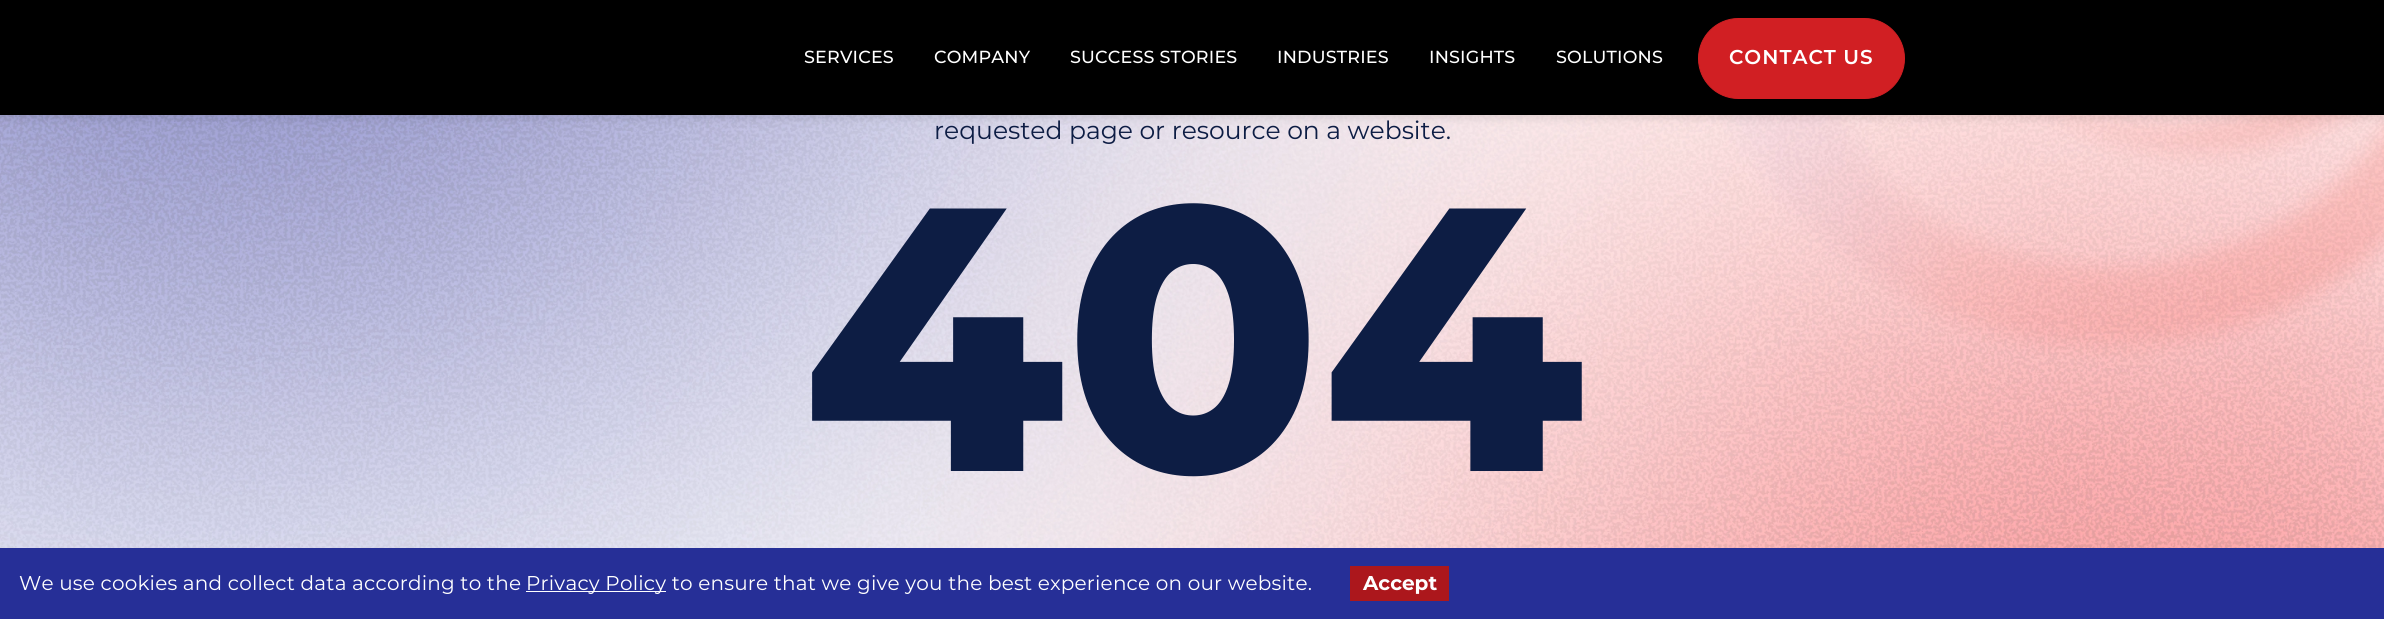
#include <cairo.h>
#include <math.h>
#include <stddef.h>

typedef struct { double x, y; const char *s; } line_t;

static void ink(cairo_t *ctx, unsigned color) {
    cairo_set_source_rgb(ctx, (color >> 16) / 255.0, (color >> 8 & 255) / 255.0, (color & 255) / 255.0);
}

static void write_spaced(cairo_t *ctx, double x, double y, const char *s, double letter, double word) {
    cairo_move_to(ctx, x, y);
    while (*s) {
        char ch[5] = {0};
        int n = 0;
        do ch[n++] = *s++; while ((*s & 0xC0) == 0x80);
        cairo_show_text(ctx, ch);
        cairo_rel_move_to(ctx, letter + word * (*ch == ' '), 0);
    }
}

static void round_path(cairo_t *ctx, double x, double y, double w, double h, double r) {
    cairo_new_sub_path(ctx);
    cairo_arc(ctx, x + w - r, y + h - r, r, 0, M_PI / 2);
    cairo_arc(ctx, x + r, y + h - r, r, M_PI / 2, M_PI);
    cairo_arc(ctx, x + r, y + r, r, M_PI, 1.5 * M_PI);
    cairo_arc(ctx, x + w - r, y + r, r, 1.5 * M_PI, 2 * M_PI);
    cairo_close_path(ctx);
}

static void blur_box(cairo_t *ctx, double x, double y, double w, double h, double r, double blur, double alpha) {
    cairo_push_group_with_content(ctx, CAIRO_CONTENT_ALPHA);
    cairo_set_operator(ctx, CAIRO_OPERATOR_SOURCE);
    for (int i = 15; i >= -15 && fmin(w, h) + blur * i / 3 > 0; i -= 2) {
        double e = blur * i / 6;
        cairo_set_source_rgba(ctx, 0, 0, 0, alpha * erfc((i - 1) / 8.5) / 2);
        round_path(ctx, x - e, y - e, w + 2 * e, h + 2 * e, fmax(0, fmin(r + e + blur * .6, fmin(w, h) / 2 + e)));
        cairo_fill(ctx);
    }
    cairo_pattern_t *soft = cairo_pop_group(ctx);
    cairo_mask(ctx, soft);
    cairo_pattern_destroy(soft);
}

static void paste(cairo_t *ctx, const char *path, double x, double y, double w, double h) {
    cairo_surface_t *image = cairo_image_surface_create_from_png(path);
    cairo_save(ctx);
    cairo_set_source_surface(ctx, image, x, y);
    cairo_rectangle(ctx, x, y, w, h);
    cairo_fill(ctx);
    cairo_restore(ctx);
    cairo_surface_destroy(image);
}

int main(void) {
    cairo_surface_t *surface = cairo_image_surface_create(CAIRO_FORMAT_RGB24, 2384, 619);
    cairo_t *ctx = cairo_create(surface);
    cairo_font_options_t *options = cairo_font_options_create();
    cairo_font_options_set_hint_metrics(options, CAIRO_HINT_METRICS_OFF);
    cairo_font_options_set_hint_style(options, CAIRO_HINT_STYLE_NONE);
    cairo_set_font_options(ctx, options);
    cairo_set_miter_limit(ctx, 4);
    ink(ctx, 0xFFFFFF);
    cairo_paint(ctx);
    paste(ctx, "media/1.png", 0, 115, 2384, 433);
    ink(ctx, 0x000000);
    blur_box(ctx, 0, 3, 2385, 115, 0, 5, 0.1);
    ink(ctx, 0x000000);
    cairo_rectangle(ctx, 0, 0, 2384, 115);
    cairo_fill(ctx);
    cairo_select_font_face(ctx, "Montserrat Medium", CAIRO_FONT_SLANT_NORMAL, CAIRO_FONT_WEIGHT_NORMAL);
    cairo_set_font_size(ctx, 17.5);
    ink(ctx, 0xFFFFFF);
    {
        static const line_t items[] = {
            {804, 63, "SERVICES"},
            {934, 63, "COMPANY"},
            {1070, 63, "SUCCESS STORIES"},
            {1277, 63, "INDUSTRIES"},
            {1429, 63, "INSIGHTS"},
            {1556, 63, "SOLUTIONS"},
        };
        for (size_t i = 0; i < sizeof items / sizeof *items; i++) {
            write_spaced(ctx, items[i].x, items[i].y, items[i].s, 0.2, 0);
        }
    }
    ink(ctx, 0xD11F23);
    round_path(ctx, 1698.5, 18.5, 206, 80, 40);
    cairo_fill_preserve(ctx);
    cairo_set_line_width(ctx, 1);
    cairo_stroke(ctx);
    cairo_select_font_face(ctx, "Montserrat SemiBold", CAIRO_FONT_SLANT_NORMAL, CAIRO_FONT_WEIGHT_NORMAL);
    cairo_set_font_size(ctx, 20);
    ink(ctx, 0xFFFFFF);
    write_spaced(ctx, 1729, 64, "CONTACT US", 1, 0);
    cairo_select_font_face(ctx, "Montserrat", CAIRO_FONT_SLANT_NORMAL, CAIRO_FONT_WEIGHT_NORMAL);
    cairo_set_font_size(ctx, 25);
    ink(ctx, 0x0D1D44);
    cairo_move_to(ctx, 934, 139);
    cairo_show_text(ctx, "requested page or resource on a website.");
    cairo_select_font_face(ctx, "Montserrat ExtraBold", CAIRO_FONT_SLANT_NORMAL, CAIRO_FONT_WEIGHT_NORMAL);
    cairo_set_font_size(ctx, 375);
    cairo_move_to(ctx, 802, 471);
    cairo_show_text(ctx, "404");
    ink(ctx, 0x262F97);
    cairo_rectangle(ctx, 0, 548, 2384, 71);
    cairo_fill(ctx);
    cairo_select_font_face(ctx, "Montserrat", CAIRO_FONT_SLANT_NORMAL, CAIRO_FONT_WEIGHT_NORMAL);
    cairo_set_font_size(ctx, 20);
    ink(ctx, 0xFFFFFF);
    write_spaced(ctx, 19, 590, "We use cookies and collect data according to the", 0.2, 0);
    cairo_rectangle(ctx, 526, 591, 140, 1);
    cairo_fill(ctx);
    write_spaced(ctx, 526, 590, "Privacy Policy to ensure that we give you the best experience on our website.", 0.2, 0);
    ink(ctx, 0xAC171C);
    cairo_rectangle(ctx, 1350, 566, 99, 35);
    cairo_fill(ctx);
    cairo_select_font_face(ctx, "Montserrat", CAIRO_FONT_SLANT_NORMAL, CAIRO_FONT_WEIGHT_BOLD);
    ink(ctx, 0xFFFFFF);
    cairo_move_to(ctx, 1363, 590);
    cairo_show_text(ctx, "Accept");
    cairo_surface_write_to_png(surface, "image.png");
    cairo_font_options_destroy(options);
    cairo_destroy(ctx);
    cairo_surface_destroy(surface);
    return 0;
}
